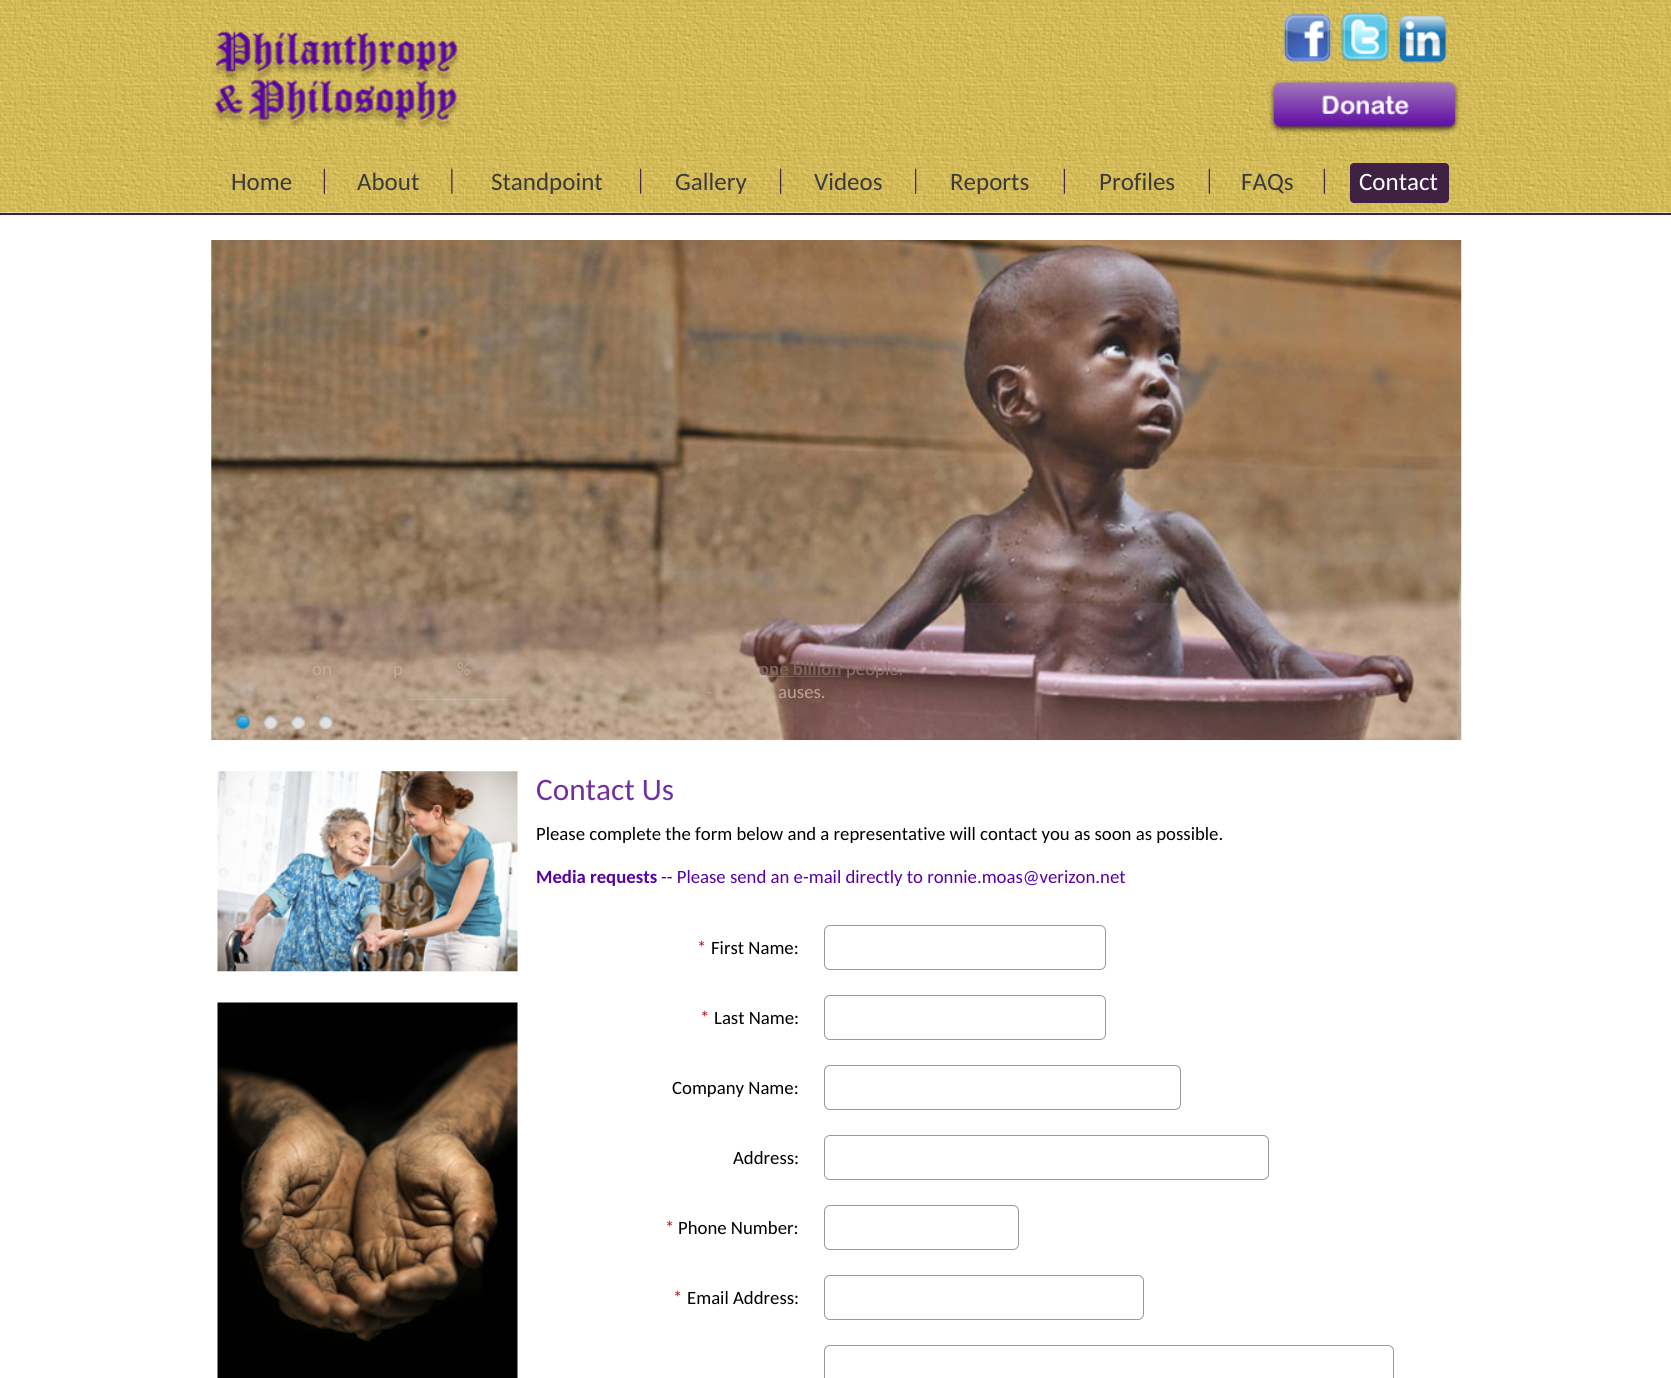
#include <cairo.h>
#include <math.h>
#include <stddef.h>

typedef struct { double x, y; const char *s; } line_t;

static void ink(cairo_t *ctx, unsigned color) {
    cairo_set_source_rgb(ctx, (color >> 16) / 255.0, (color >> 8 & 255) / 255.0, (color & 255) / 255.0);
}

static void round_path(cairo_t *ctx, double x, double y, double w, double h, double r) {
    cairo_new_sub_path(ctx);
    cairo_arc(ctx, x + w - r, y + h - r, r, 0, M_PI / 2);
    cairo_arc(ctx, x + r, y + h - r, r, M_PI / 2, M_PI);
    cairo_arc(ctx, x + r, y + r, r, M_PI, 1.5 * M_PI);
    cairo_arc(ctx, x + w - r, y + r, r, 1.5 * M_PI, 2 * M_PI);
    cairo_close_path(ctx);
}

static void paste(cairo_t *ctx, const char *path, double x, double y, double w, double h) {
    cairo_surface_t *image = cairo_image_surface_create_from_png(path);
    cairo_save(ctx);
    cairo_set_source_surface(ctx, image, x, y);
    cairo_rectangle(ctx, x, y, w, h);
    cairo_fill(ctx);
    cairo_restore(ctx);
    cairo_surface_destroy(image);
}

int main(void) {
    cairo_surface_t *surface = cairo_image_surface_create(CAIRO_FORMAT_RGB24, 1671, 1378);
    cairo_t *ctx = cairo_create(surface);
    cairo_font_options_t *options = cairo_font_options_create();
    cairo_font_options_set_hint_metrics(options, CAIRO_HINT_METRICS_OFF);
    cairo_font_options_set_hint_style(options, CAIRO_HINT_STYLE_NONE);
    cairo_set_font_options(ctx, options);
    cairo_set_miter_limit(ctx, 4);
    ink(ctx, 0xFFFFFF);
    cairo_paint(ctx);
    paste(ctx, "media/1.png", 0, 0, 1671, 150);
    paste(ctx, "media/2.png", 212, 31, 249, 98);
    paste(ctx, "media/3.png", 1283, 13, 49, 50);
    paste(ctx, "media/4.png", 1341, 12, 48, 50);
    paste(ctx, "media/5.png", 1398, 15, 49, 48);
    paste(ctx, "media/6.png", 1268, 80, 194, 55);
    paste(ctx, "media/7.png", 0, 150, 1671, 63);
    cairo_select_font_face(ctx, "Carlito", CAIRO_FONT_SLANT_NORMAL, CAIRO_FONT_WEIGHT_NORMAL);
    cairo_set_font_size(ctx, 25);
    ink(ctx, 0x3B3B3B);
    cairo_move_to(ctx, 231, 190);
    cairo_show_text(ctx, "Home");
    paste(ctx, "media/8.png", 323, 168, 2, 26);
    cairo_move_to(ctx, 357, 190);
    cairo_show_text(ctx, "About");
    paste(ctx, "media/9.png", 451, 168, 2, 26);
    cairo_move_to(ctx, 491, 190);
    cairo_show_text(ctx, "Standpoint");
    paste(ctx, "media/10.png", 640, 168, 2, 26);
    cairo_move_to(ctx, 675, 190);
    cairo_show_text(ctx, "Gallery");
    paste(ctx, "media/11.png", 780, 168, 2, 26);
    cairo_move_to(ctx, 814, 190);
    cairo_show_text(ctx, "Videos");
    paste(ctx, "media/12.png", 915, 168, 2, 26);
    cairo_move_to(ctx, 950, 190);
    cairo_show_text(ctx, "Reports");
    paste(ctx, "media/13.png", 1063, 168, 2, 26);
    cairo_move_to(ctx, 1099, 190);
    cairo_show_text(ctx, "Profiles");
    paste(ctx, "media/14.png", 1208, 168, 2, 26);
    cairo_move_to(ctx, 1241, 190);
    cairo_show_text(ctx, "FAQs");
    paste(ctx, "media/15.png", 1323, 168, 2, 26);
    ink(ctx, 0x3F2143);
    round_path(ctx, 1350, 163, 99, 40, 4);
    cairo_fill(ctx);
    ink(ctx, 0xFFFFFF);
    cairo_move_to(ctx, 1359, 190);
    cairo_show_text(ctx, "Contact");
    ink(ctx, 0x3F2143);
    cairo_rectangle(ctx, 0, 213, 1671, 2);
    cairo_fill(ctx);
    paste(ctx, "media/16.png", 211, 240, 1251, 500);
    paste(ctx, "media/17.png", 211, 603, 1250, 138);
    cairo_set_font_size(ctx, 18.75);
    ink(ctx, 0xC2AD9B);
    {
        static const line_t items[] = {
            {312, 675, "on"},
            {393, 675, "p"},
            {457, 675, "%"},
        };
        for (size_t i = 0; i < sizeof items / sizeof *items; i++) {
            cairo_move_to(ctx, items[i].x, items[i].y);
            cairo_show_text(ctx, items[i].s);
        }
    }
    cairo_select_font_face(ctx, "Carlito", CAIRO_FONT_SLANT_NORMAL, CAIRO_FONT_WEIGHT_BOLD);
    ink(ctx, 0x7D625D);
    cairo_move_to(ctx, 759, 675);
    cairo_show_text(ctx, "one billion");
    cairo_set_source_rgba(ctx, 1, 1, 1, 0.15);
    cairo_rectangle(ctx, 759, 676, 82, 1);
    cairo_fill(ctx);
    cairo_select_font_face(ctx, "Carlito", CAIRO_FONT_SLANT_NORMAL, CAIRO_FONT_WEIGHT_NORMAL);
    ink(ctx, 0x907374);
    cairo_move_to(ctx, 846, 675);
    cairo_show_text(ctx, "people.");
    ink(ctx, 0xBAA595);
    cairo_move_to(ctx, 706, 698);
    cairo_show_text(ctx, "-");
    cairo_move_to(ctx, 778, 698);
    cairo_show_text(ctx, "auses.");
    ink(ctx, 0xC2AD9B);
    cairo_move_to(ctx, 315, 698);
    cairo_show_text(ctx, ",");
    cairo_set_source_rgba(ctx, 1, 1, 1, 0.15);
    cairo_rectangle(ctx, 411, 699, 102, 1);
    cairo_fill(ctx);
    paste(ctx, "media/18.png", 236, 715, 14, 14);
    paste(ctx, "media/19.png", 263, 715, 15, 14);
    paste(ctx, "media/20.png", 291, 715, 14, 14);
    paste(ctx, "media/21.png", 318, 715, 15, 14);
    paste(ctx, "media/22.png", 217, 771, 301, 201);
    paste(ctx, "media/23.png", 217, 1002, 301, 376);
    cairo_set_font_size(ctx, 31.25);
    ink(ctx, 0x7030A0);
    cairo_move_to(ctx, 536, 800);
    cairo_show_text(ctx, "Contact Us");
    cairo_set_font_size(ctx, 18.75);
    ink(ctx, 0x000000);
    cairo_move_to(ctx, 536, 840);
    cairo_show_text(ctx, "Please complete the form below and a representative will contact you as soon as possible.");
    cairo_select_font_face(ctx, "Carlito", CAIRO_FONT_SLANT_NORMAL, CAIRO_FONT_WEIGHT_BOLD);
    ink(ctx, 0x5800A3);
    cairo_move_to(ctx, 536, 883);
    cairo_show_text(ctx, "Media requests");
    cairo_select_font_face(ctx, "Carlito", CAIRO_FONT_SLANT_NORMAL, CAIRO_FONT_WEIGHT_NORMAL);
    cairo_move_to(ctx, 661, 883);
    cairo_show_text(ctx, "-- Please send an e-mail directly to ronnie.moas@verizon.net");
    ink(ctx, 0xAD1D1D);
    cairo_move_to(ctx, 697, 954);
    cairo_show_text(ctx, "*");
    ink(ctx, 0x000000);
    cairo_move_to(ctx, 711, 954);
    cairo_show_text(ctx, "First Name:");
    round_path(ctx, 824.5, 925.5, 281, 44, 5.5);
    ink(ctx, 0x999999);
    cairo_set_line_width(ctx, 1);
    cairo_stroke(ctx);
    ink(ctx, 0xAD1D1D);
    cairo_move_to(ctx, 700, 1024);
    cairo_show_text(ctx, "*");
    ink(ctx, 0x000000);
    cairo_move_to(ctx, 714, 1024);
    cairo_show_text(ctx, "Last Name:");
    round_path(ctx, 824.5, 995.5, 281, 44, 5.5);
    ink(ctx, 0x999999);
    cairo_stroke(ctx);
    ink(ctx, 0x000000);
    cairo_move_to(ctx, 672, 1094);
    cairo_show_text(ctx, "Company Name:");
    round_path(ctx, 824.5, 1065.5, 356, 44, 5.5);
    ink(ctx, 0x999999);
    cairo_stroke(ctx);
    ink(ctx, 0x000000);
    cairo_move_to(ctx, 733, 1164);
    cairo_show_text(ctx, "Address:");
    round_path(ctx, 824.5, 1135.5, 444, 44, 5.5);
    ink(ctx, 0x999999);
    cairo_stroke(ctx);
    ink(ctx, 0xAD1D1D);
    cairo_move_to(ctx, 665, 1234);
    cairo_show_text(ctx, "*");
    ink(ctx, 0x000000);
    cairo_move_to(ctx, 678, 1234);
    cairo_show_text(ctx, "Phone Number:");
    round_path(ctx, 824.5, 1205.5, 194, 44, 5.5);
    ink(ctx, 0x999999);
    cairo_stroke(ctx);
    ink(ctx, 0xAD1D1D);
    cairo_move_to(ctx, 673, 1304);
    cairo_show_text(ctx, "*");
    ink(ctx, 0x000000);
    cairo_move_to(ctx, 687, 1304);
    cairo_show_text(ctx, "Email Address:");
    round_path(ctx, 824.5, 1275.5, 319, 44, 5.5);
    ink(ctx, 0x999999);
    cairo_stroke(ctx);
    round_path(ctx, 824.5, 1345.5, 569, 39, 5.5);
    cairo_stroke(ctx);
    cairo_surface_write_to_png(surface, "image.png");
    cairo_font_options_destroy(options);
    cairo_destroy(ctx);
    cairo_surface_destroy(surface);
    return 0;
}
